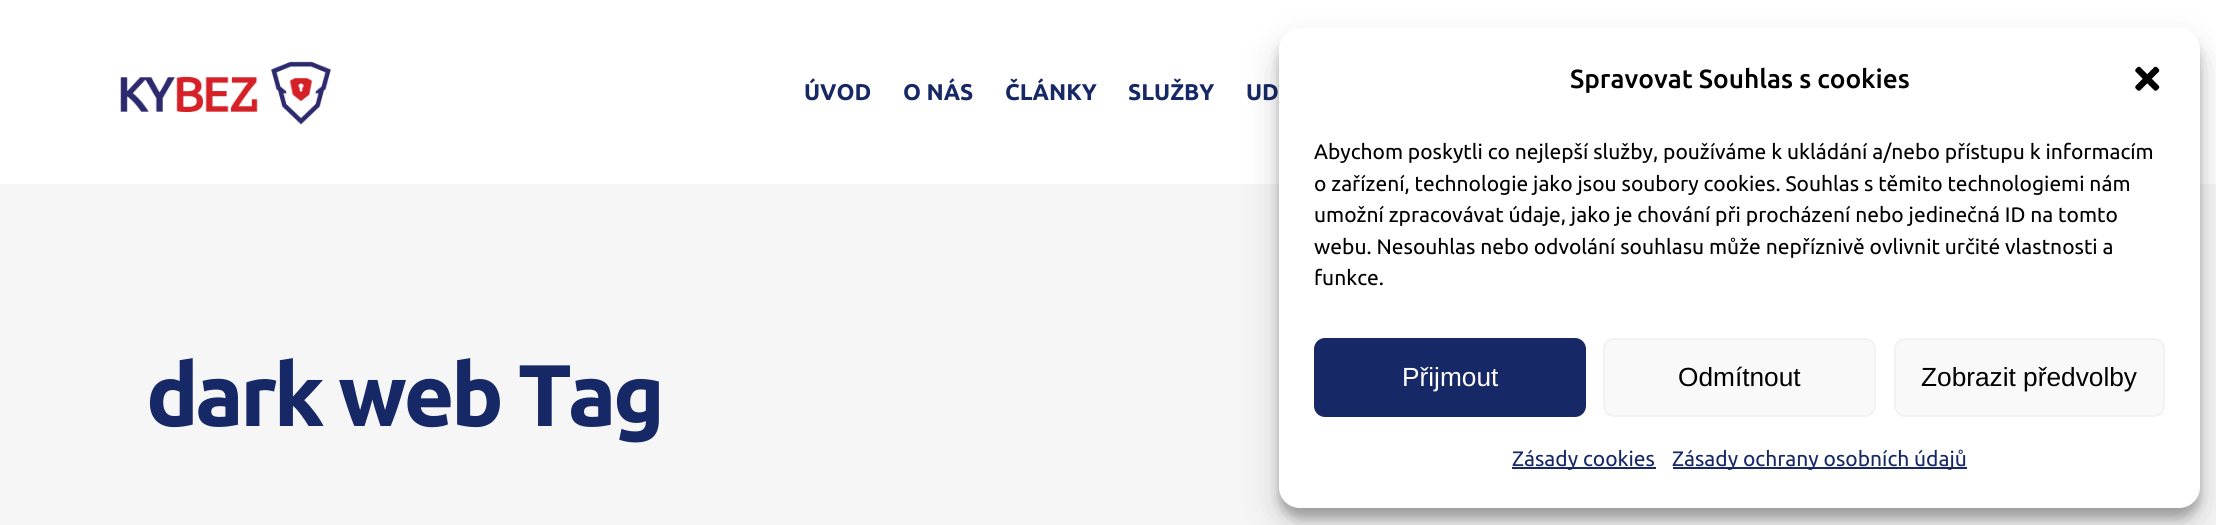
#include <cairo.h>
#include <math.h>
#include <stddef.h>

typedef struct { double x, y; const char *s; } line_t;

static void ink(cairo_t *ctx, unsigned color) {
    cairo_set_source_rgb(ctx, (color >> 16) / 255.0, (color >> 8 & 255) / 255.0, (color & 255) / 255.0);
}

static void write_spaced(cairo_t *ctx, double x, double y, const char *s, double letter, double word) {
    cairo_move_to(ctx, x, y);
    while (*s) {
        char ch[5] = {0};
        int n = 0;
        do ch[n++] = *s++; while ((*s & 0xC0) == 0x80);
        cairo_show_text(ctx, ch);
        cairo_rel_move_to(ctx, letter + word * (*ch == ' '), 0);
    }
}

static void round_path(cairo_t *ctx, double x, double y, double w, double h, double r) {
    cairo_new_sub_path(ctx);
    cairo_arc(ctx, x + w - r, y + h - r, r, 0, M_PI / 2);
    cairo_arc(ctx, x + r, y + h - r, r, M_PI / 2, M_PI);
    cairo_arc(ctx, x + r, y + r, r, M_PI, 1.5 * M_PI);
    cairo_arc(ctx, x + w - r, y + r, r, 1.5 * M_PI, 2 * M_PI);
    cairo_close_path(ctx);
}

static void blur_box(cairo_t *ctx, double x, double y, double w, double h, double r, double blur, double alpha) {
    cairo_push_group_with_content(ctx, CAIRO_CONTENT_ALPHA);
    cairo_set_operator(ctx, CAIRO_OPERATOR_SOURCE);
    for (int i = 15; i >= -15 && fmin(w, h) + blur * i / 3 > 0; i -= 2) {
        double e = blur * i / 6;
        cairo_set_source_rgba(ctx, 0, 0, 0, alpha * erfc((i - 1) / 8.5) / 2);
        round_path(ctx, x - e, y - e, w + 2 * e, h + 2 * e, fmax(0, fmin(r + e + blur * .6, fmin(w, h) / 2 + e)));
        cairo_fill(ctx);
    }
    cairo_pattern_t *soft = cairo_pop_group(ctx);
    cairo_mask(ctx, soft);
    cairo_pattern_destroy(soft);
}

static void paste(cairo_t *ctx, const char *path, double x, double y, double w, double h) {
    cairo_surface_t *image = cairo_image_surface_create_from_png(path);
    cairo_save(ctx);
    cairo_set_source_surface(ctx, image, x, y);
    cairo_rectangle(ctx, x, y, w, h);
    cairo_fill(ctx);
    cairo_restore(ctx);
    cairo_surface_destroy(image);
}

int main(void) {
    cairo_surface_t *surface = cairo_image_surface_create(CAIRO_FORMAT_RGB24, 2216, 525);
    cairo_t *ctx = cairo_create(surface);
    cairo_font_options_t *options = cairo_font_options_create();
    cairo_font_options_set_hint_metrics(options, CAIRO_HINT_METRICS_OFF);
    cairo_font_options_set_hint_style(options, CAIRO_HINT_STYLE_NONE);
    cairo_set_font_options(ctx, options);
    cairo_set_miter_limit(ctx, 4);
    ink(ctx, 0xFFFFFF);
    cairo_paint(ctx);
    paste(ctx, "media/1.png", 120, 61, 211, 64);
    cairo_select_font_face(ctx, "Ubuntu", CAIRO_FONT_SLANT_NORMAL, CAIRO_FONT_WEIGHT_BOLD);
    cairo_set_font_size(ctx, 22.75);
    ink(ctx, 0x162866);
    {
        static const line_t items[] = {
            {804, 100, "ÚVOD"},
            {903, 100, "O NÁS"},
            {1005, 100, "ČLÁNKY"},
            {1128, 100, "SLUŽBY"},
            {1246, 100, "UD"},
        };
        for (size_t i = 0; i < sizeof items / sizeof *items; i++) {
            cairo_move_to(ctx, items[i].x, items[i].y);
            cairo_show_text(ctx, items[i].s);
        }
    }
    ink(ctx, 0xF6F6F6);
    cairo_rectangle(ctx, 0, 184, 2216, 341);
    cairo_fill(ctx);
    cairo_set_font_size(ctx, 87.5);
    ink(ctx, 0x162866);
    write_spaced(ctx, 146, 426, "dark web Tag", -3.5, 0);
    ink(ctx, 0x000000);
    blur_box(ctx, 1279, 39, 921, 479, 21, 5, 0.23);
    blur_box(ctx, 1279, 46, 921, 479, 21, 17.5, 0.19);
    ink(ctx, 0xFFFFFF);
    round_path(ctx, 1279, 28, 921, 480, 21);
    cairo_fill(ctx);
    cairo_select_font_face(ctx, "Ubuntu Medium", CAIRO_FONT_SLANT_NORMAL, CAIRO_FONT_WEIGHT_NORMAL);
    cairo_set_font_size(ctx, 26.25);
    ink(ctx, 0x000000);
    cairo_move_to(ctx, 1570, 88);
    cairo_show_text(ctx, "Spravovat Souhlas s cookies");
    paste(ctx, "media/2.png", 2135, 66, 25, 25);
    cairo_select_font_face(ctx, "Ubuntu", CAIRO_FONT_SLANT_NORMAL, CAIRO_FONT_WEIGHT_NORMAL);
    cairo_set_font_size(ctx, 21);
    {
        static const line_t items[] = {
            {1314, 159, "Abychom poskytli co nejlepší služby, používáme k ukládání a/nebo přístupu k informacím"},
            {1314, 191, "o zařízení, technologie jako jsou soubory cookies. Souhlas s těmito technologiemi nám"},
            {1314, 222, "umožní zpracovávat údaje, jako je chování při procházení nebo jedinečná ID na tomto"},
            {1314, 254, "webu. Nesouhlas nebo odvolání souhlasu může nepříznivě ovlivnit určité vlastnosti a"},
            {1314, 285, "funkce."},
        };
        for (size_t i = 0; i < sizeof items / sizeof *items; i++) {
            cairo_move_to(ctx, items[i].x, items[i].y);
            cairo_show_text(ctx, items[i].s);
        }
    }
    ink(ctx, 0x162866);
    round_path(ctx, 1315, 339, 270, 77, 10);
    cairo_fill_preserve(ctx);
    cairo_stroke(ctx);
    cairo_select_font_face(ctx, "Liberation Sans", CAIRO_FONT_SLANT_NORMAL, CAIRO_FONT_WEIGHT_NORMAL);
    cairo_set_font_size(ctx, 26.25);
    ink(ctx, 0xFFFFFF);
    cairo_move_to(ctx, 1402, 386);
    cairo_show_text(ctx, "Přijmout");
    ink(ctx, 0xF9F9F9);
    round_path(ctx, 1604, 339, 271, 77, 10);
    cairo_fill_preserve(ctx);
    ink(ctx, 0xF2F2F2);
    cairo_stroke(ctx);
    ink(ctx, 0x000000);
    cairo_move_to(ctx, 1678, 386);
    cairo_show_text(ctx, "Odmítnout");
    ink(ctx, 0xF9F9F9);
    round_path(ctx, 1895, 339, 269, 77, 10);
    cairo_fill_preserve(ctx);
    ink(ctx, 0xF2F2F2);
    cairo_stroke(ctx);
    ink(ctx, 0x000000);
    cairo_move_to(ctx, 1921, 386);
    cairo_show_text(ctx, "Zobrazit předvolby");
    ink(ctx, 0x162866);
    cairo_rectangle(ctx, 1512, 467, 144, 2);
    cairo_fill(ctx);
    cairo_select_font_face(ctx, "Ubuntu", CAIRO_FONT_SLANT_NORMAL, CAIRO_FONT_WEIGHT_NORMAL);
    cairo_set_font_size(ctx, 21);
    cairo_move_to(ctx, 1512, 466);
    cairo_show_text(ctx, "Zásady cookies");
    cairo_rectangle(ctx, 1673, 467, 294, 2);
    cairo_fill(ctx);
    cairo_move_to(ctx, 1672, 466);
    cairo_show_text(ctx, "Zásady ochrany osobních údajů");
    cairo_surface_write_to_png(surface, "image.png");
    cairo_font_options_destroy(options);
    cairo_destroy(ctx);
    cairo_surface_destroy(surface);
    return 0;
}
